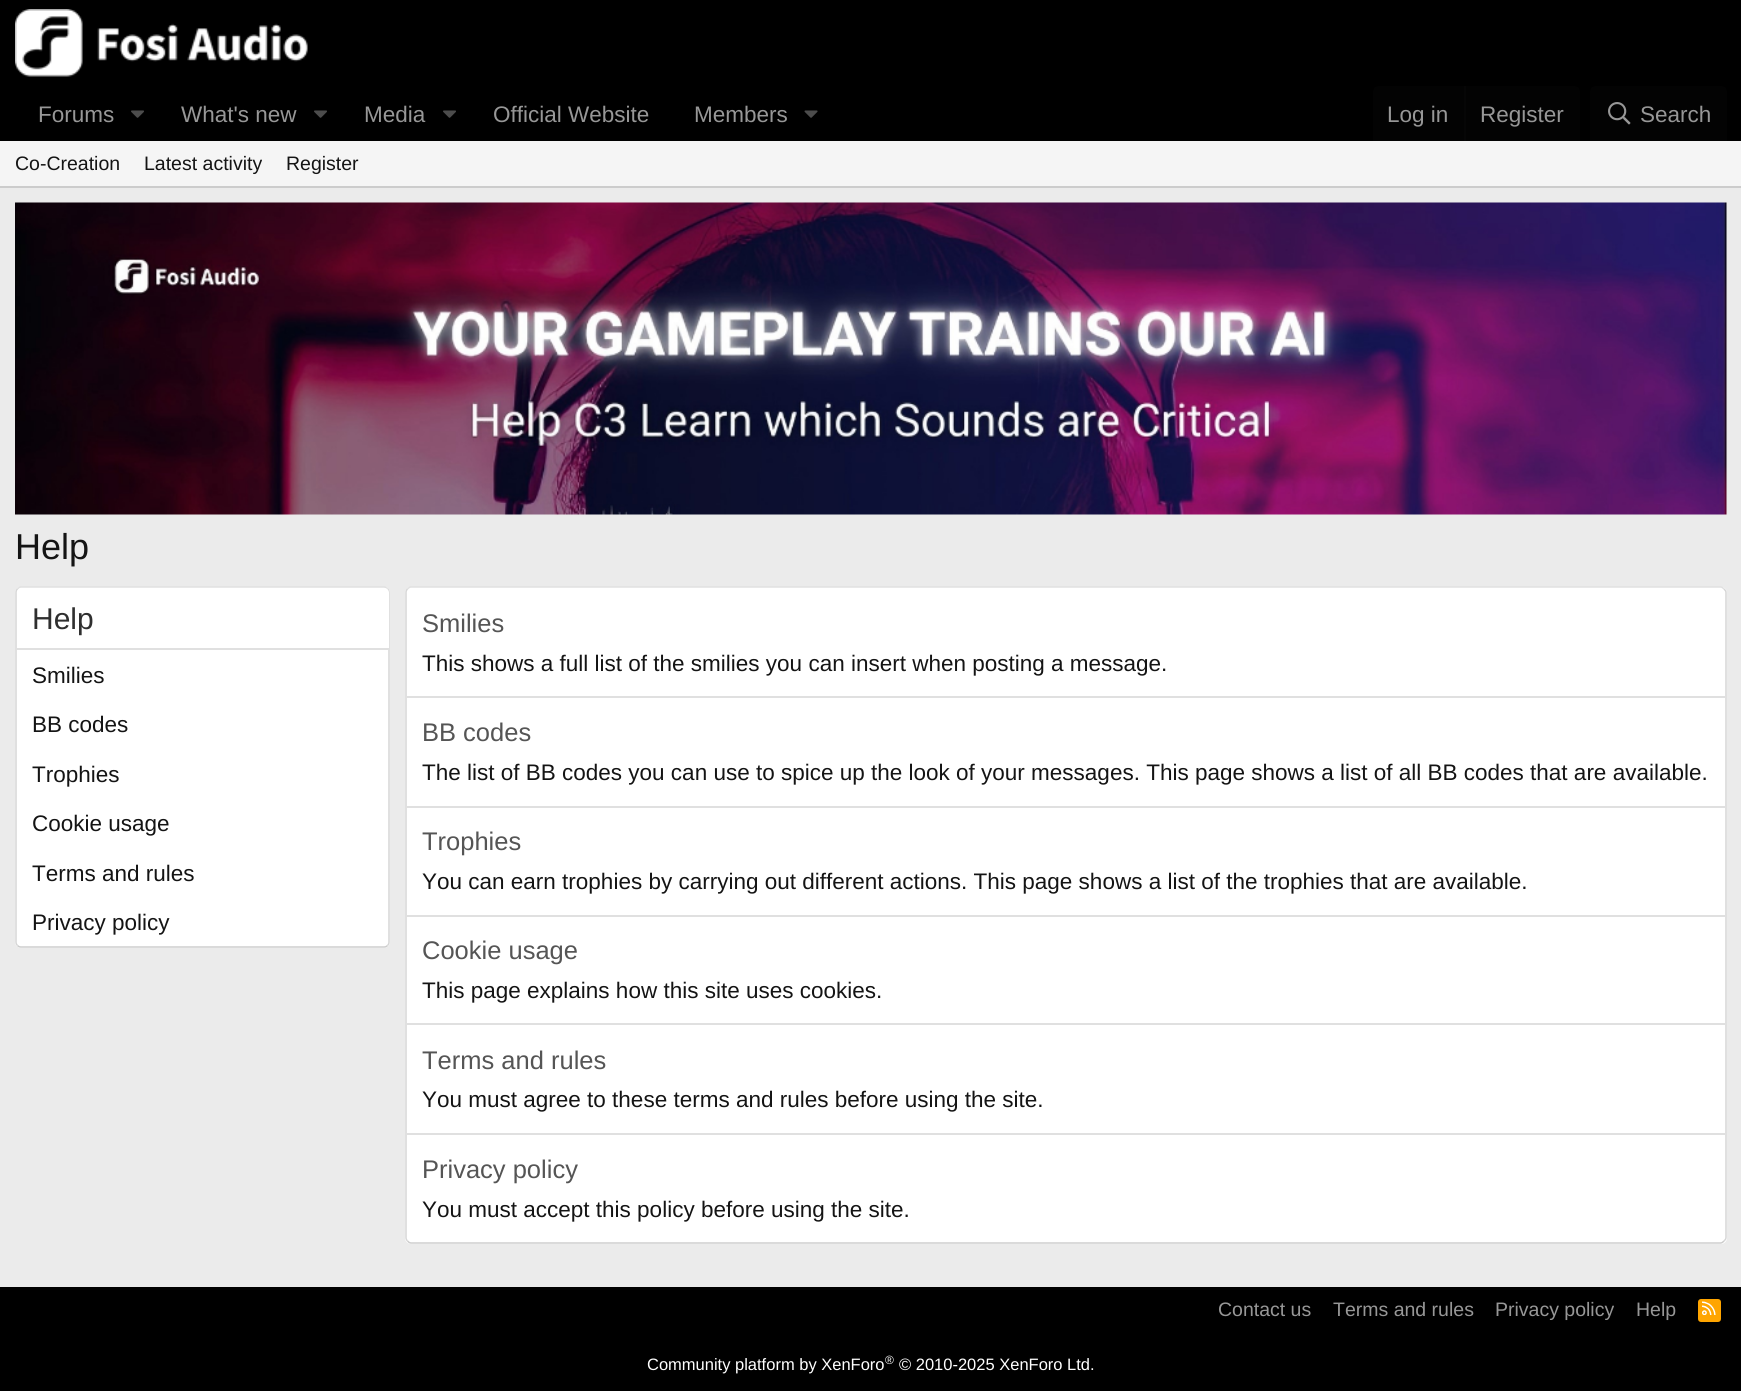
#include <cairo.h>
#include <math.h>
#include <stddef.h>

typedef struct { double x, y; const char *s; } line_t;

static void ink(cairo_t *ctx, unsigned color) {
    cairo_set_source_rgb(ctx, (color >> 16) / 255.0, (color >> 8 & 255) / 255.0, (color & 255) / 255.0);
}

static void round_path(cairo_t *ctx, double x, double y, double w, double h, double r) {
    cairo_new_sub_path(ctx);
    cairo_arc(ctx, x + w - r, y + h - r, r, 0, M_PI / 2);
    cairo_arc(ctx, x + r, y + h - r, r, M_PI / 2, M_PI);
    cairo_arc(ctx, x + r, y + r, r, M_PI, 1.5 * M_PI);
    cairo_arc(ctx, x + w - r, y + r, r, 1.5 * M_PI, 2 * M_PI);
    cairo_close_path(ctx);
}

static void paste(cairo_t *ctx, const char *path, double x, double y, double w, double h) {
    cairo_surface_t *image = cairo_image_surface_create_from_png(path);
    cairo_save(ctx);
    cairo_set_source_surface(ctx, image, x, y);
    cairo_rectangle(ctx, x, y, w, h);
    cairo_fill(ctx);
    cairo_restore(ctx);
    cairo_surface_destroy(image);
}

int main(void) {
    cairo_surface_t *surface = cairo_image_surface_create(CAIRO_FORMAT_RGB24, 1741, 1391);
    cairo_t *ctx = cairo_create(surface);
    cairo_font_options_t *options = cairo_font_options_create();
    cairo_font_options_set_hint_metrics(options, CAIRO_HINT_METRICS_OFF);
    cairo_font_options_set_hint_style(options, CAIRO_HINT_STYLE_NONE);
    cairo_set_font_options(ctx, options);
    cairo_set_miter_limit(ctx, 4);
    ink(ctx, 0xEBEBEB);
    cairo_paint(ctx);
    ink(ctx, 0x000000);
    cairo_rectangle(ctx, 0, 0, 1741, 141);
    cairo_fill(ctx);
    paste(ctx, "media/1.png", 15, 9, 293, 68);
    cairo_select_font_face(ctx, "Liberation Sans", CAIRO_FONT_SLANT_NORMAL, CAIRO_FONT_WEIGHT_NORMAL);
    cairo_set_font_size(ctx, 22.5);
    ink(ctx, 0x979797);
    cairo_move_to(ctx, 38, 122);
    cairo_show_text(ctx, "Forums");
    paste(ctx, "media/2.png", 131, 110, 13, 8);
    cairo_move_to(ctx, 181, 122);
    cairo_show_text(ctx, "What's new");
    paste(ctx, "media/2.png", 314, 110, 13, 8);
    cairo_move_to(ctx, 364, 122);
    cairo_show_text(ctx, "Media");
    paste(ctx, "media/2.png", 443, 110, 13, 8);
    cairo_move_to(ctx, 493, 122);
    cairo_show_text(ctx, "Official Website");
    cairo_move_to(ctx, 694, 122);
    cairo_show_text(ctx, "Members");
    paste(ctx, "media/3.png", 804, 110, 14, 8);
    ink(ctx, 0x030303);
    cairo_new_path(ctx);
    cairo_move_to(ctx, 1379, 86);
    cairo_line_to(ctx, 1574, 86);
    cairo_curve_to(ctx, 1577.5, 86, 1580, 88.5, 1580, 92);
    cairo_line_to(ctx, 1580, 141);
    cairo_line_to(ctx, 1373, 141);
    cairo_line_to(ctx, 1373, 92);
    cairo_curve_to(ctx, 1373, 88.5, 1375.5, 86, 1379, 86);
    cairo_close_path(ctx);
    cairo_fill(ctx);
    ink(ctx, 0x979797);
    cairo_move_to(ctx, 1387, 122);
    cairo_show_text(ctx, "Log in");
    ink(ctx, 0x060606);
    cairo_rectangle(ctx, 1464, 86, 2, 55);
    cairo_fill(ctx);
    ink(ctx, 0x979797);
    cairo_move_to(ctx, 1480, 122);
    cairo_show_text(ctx, "Register");
    ink(ctx, 0x030303);
    cairo_new_path(ctx);
    cairo_move_to(ctx, 1596, 86);
    cairo_line_to(ctx, 1721, 86);
    cairo_curve_to(ctx, 1724.5, 86, 1727, 88.5, 1727, 92);
    cairo_line_to(ctx, 1727, 141);
    cairo_line_to(ctx, 1590, 141);
    cairo_line_to(ctx, 1590, 92);
    cairo_curve_to(ctx, 1590, 88.5, 1592.5, 86, 1596, 86);
    cairo_close_path(ctx);
    cairo_fill(ctx);
    paste(ctx, "media/4.png", 1608, 102, 23, 23);
    ink(ctx, 0x979797);
    cairo_move_to(ctx, 1640, 122);
    cairo_show_text(ctx, "Search");
    ink(ctx, 0xF5F5F5);
    cairo_rectangle(ctx, 0, 141, 1741, 45);
    cairo_fill(ctx);
    ink(ctx, 0xCCCCCC);
    cairo_rectangle(ctx, 0, 186, 1741, 2);
    cairo_fill(ctx);
    cairo_set_font_size(ctx, 19.5);
    ink(ctx, 0x141414);
    {
        static const line_t items[] = {
            {15, 170, "Co-Creation"},
            {144, 170, "Latest activity"},
            {286, 170, "Register"},
        };
        for (size_t i = 0; i < sizeof items / sizeof *items; i++) {
            cairo_move_to(ctx, items[i].x, items[i].y);
            cairo_show_text(ctx, items[i].s);
        }
    }
    paste(ctx, "media/5.png", 15, 202, 1712, 313);
    cairo_set_font_size(ctx, 36);
    cairo_move_to(ctx, 15, 559);
    cairo_show_text(ctx, "Help");
    ink(ctx, 0xFFFFFF);
    round_path(ctx, 15, 587, 375, 361, 6);
    cairo_fill(ctx);
    cairo_new_path(ctx);
    cairo_move_to(ctx, 17.5, 589);
    cairo_curve_to(ctx, 18.5, 588, 19.5, 587, 21, 587);
    cairo_line_to(ctx, 384, 587);
    cairo_curve_to(ctx, 385.5, 587, 386.5, 588, 387.5, 589);
    ink(ctx, 0xE0E0E0);
    cairo_set_line_width(ctx, 1.5);
    cairo_stroke(ctx);
    cairo_new_path(ctx);
    cairo_move_to(ctx, 387.5, 589);
    cairo_curve_to(ctx, 388.5, 590, 389, 591, 389, 592.5);
    cairo_line_to(ctx, 389, 942);
    cairo_curve_to(ctx, 389, 943.5, 388.5, 944.5, 387.5, 945.5);
    ink(ctx, 0xD6D6D6);
    cairo_stroke(ctx);
    cairo_new_path(ctx);
    cairo_move_to(ctx, 387.5, 945.5);
    cairo_curve_to(ctx, 386.5, 946.5, 385.5, 947, 384, 947);
    cairo_line_to(ctx, 21, 947);
    cairo_curve_to(ctx, 19.5, 947, 18.5, 946.5, 17.5, 945.5);
    ink(ctx, 0xCCCCCC);
    cairo_stroke(ctx);
    cairo_new_path(ctx);
    cairo_move_to(ctx, 17.5, 945.5);
    cairo_curve_to(ctx, 16.5, 944.5, 16, 943.5, 16, 942);
    cairo_line_to(ctx, 16, 592.5);
    cairo_curve_to(ctx, 16, 591, 16.5, 590, 17.5, 589);
    ink(ctx, 0xD6D6D6);
    cairo_stroke(ctx);
    ink(ctx, 0xFFFFFF);
    cairo_new_path(ctx);
    cairo_move_to(ctx, 22, 588);
    cairo_line_to(ctx, 384, 588);
    cairo_curve_to(ctx, 387, 588, 389, 590, 389, 593);
    cairo_line_to(ctx, 389, 650);
    cairo_line_to(ctx, 17, 650);
    cairo_line_to(ctx, 17, 593);
    cairo_curve_to(ctx, 17, 590, 19, 588, 22, 588);
    cairo_close_path(ctx);
    cairo_fill(ctx);
    ink(ctx, 0xE0E0E0);
    cairo_rectangle(ctx, 17, 648, 372, 2);
    cairo_fill(ctx);
    cairo_set_font_size(ctx, 30);
    ink(ctx, 0x2F2F2F);
    cairo_move_to(ctx, 32, 629);
    cairo_show_text(ctx, "Help");
    cairo_set_font_size(ctx, 22.5);
    ink(ctx, 0x141414);
    {
        static const line_t items[] = {
            {32, 683, "Smilies"},
            {32, 732, "BB codes"},
            {32, 782, "Trophies"},
            {32, 831, "Cookie usage"},
            {32, 881, "Terms and rules"},
            {32, 930, "Privacy policy"},
        };
        for (size_t i = 0; i < sizeof items / sizeof *items; i++) {
            cairo_move_to(ctx, items[i].x, items[i].y);
            cairo_show_text(ctx, items[i].s);
        }
    }
    ink(ctx, 0xFFFFFF);
    round_path(ctx, 405, 587, 1322, 657, 6);
    cairo_fill(ctx);
    cairo_new_path(ctx);
    cairo_move_to(ctx, 407.5, 589);
    cairo_curve_to(ctx, 408.5, 588, 409.5, 587, 411, 587);
    cairo_line_to(ctx, 1720.5, 587);
    cairo_curve_to(ctx, 1722, 587, 1723, 588, 1724, 589);
    ink(ctx, 0xE0E0E0);
    cairo_stroke(ctx);
    cairo_new_path(ctx);
    cairo_move_to(ctx, 1724, 589);
    cairo_curve_to(ctx, 1725, 590, 1726, 591, 1726, 592.5);
    cairo_line_to(ctx, 1726, 1237.5);
    cairo_curve_to(ctx, 1726, 1239, 1725, 1240, 1724, 1241);
    ink(ctx, 0xD6D6D6);
    cairo_stroke(ctx);
    cairo_new_path(ctx);
    cairo_move_to(ctx, 1724, 1241);
    cairo_curve_to(ctx, 1723, 1242, 1722, 1243, 1720.5, 1243);
    cairo_line_to(ctx, 411, 1243);
    cairo_curve_to(ctx, 409.5, 1243, 408.5, 1242, 407.5, 1241);
    ink(ctx, 0xCCCCCC);
    cairo_stroke(ctx);
    cairo_new_path(ctx);
    cairo_move_to(ctx, 407.5, 1241);
    cairo_curve_to(ctx, 406.5, 1240, 406, 1239, 406, 1237.5);
    cairo_line_to(ctx, 406, 592.5);
    cairo_curve_to(ctx, 406, 591, 406.5, 590, 407.5, 589);
    ink(ctx, 0xD6D6D6);
    cairo_stroke(ctx);
    cairo_set_font_size(ctx, 25.5);
    ink(ctx, 0x555555);
    cairo_move_to(ctx, 422, 632);
    cairo_show_text(ctx, "Smilies");
    cairo_set_font_size(ctx, 22.5);
    ink(ctx, 0x141414);
    cairo_move_to(ctx, 422, 671);
    cairo_show_text(ctx, "This shows a full list of the smilies you can insert when posting a message.");
    ink(ctx, 0xE0E0E0);
    cairo_rectangle(ctx, 407, 696, 1318, 2);
    cairo_fill(ctx);
    cairo_set_font_size(ctx, 25.5);
    ink(ctx, 0x555555);
    cairo_move_to(ctx, 422, 741);
    cairo_show_text(ctx, "BB codes");
    cairo_set_font_size(ctx, 22.5);
    ink(ctx, 0x141414);
    cairo_move_to(ctx, 422, 780);
    cairo_show_text(ctx, "The list of BB codes you can use to spice up the look of your messages. This page shows a list of all BB codes that are available.");
    ink(ctx, 0xE0E0E0);
    cairo_rectangle(ctx, 407, 806, 1318, 2);
    cairo_fill(ctx);
    cairo_set_font_size(ctx, 25.5);
    ink(ctx, 0x555555);
    cairo_move_to(ctx, 422, 850);
    cairo_show_text(ctx, "Trophies");
    cairo_set_font_size(ctx, 22.5);
    ink(ctx, 0x141414);
    cairo_move_to(ctx, 422, 889);
    cairo_show_text(ctx, "You can earn trophies by carrying out different actions. This page shows a list of the trophies that are available.");
    ink(ctx, 0xE0E0E0);
    cairo_rectangle(ctx, 407, 915, 1318, 2);
    cairo_fill(ctx);
    cairo_set_font_size(ctx, 25.5);
    ink(ctx, 0x555555);
    cairo_move_to(ctx, 422, 959);
    cairo_show_text(ctx, "Cookie usage");
    cairo_set_font_size(ctx, 22.5);
    ink(ctx, 0x141414);
    cairo_move_to(ctx, 422, 998);
    cairo_show_text(ctx, "This page explains how this site uses cookies.");
    ink(ctx, 0xE0E0E0);
    cairo_rectangle(ctx, 407, 1023, 1318, 2);
    cairo_fill(ctx);
    cairo_set_font_size(ctx, 25.5);
    ink(ctx, 0x555555);
    cairo_move_to(ctx, 422, 1069);
    cairo_show_text(ctx, "Terms and rules");
    cairo_set_font_size(ctx, 22.5);
    ink(ctx, 0x141414);
    cairo_move_to(ctx, 422, 1107);
    cairo_show_text(ctx, "You must agree to these terms and rules before using the site.");
    ink(ctx, 0xE0E0E0);
    cairo_rectangle(ctx, 407, 1133, 1318, 2);
    cairo_fill(ctx);
    cairo_set_font_size(ctx, 25.5);
    ink(ctx, 0x555555);
    cairo_move_to(ctx, 422, 1178);
    cairo_show_text(ctx, "Privacy policy");
    cairo_set_font_size(ctx, 22.5);
    ink(ctx, 0x141414);
    cairo_move_to(ctx, 422, 1217);
    cairo_show_text(ctx, "You must accept this policy before using the site.");
    ink(ctx, 0x000000);
    cairo_rectangle(ctx, 0, 1287, 1741, 104);
    cairo_fill(ctx);
    cairo_set_font_size(ctx, 19.5);
    ink(ctx, 0x979797);
    {
        static const line_t items[] = {
            {1218, 1316, "Contact us"},
            {1333, 1316, "Terms and rules"},
            {1495, 1316, "Privacy policy"},
            {1636, 1316, "Help"},
        };
        for (size_t i = 0; i < sizeof items / sizeof *items; i++) {
            cairo_move_to(ctx, items[i].x, items[i].y);
            cairo_show_text(ctx, items[i].s);
        }
    }
    ink(ctx, 0xFFA500);
    round_path(ctx, 1698, 1299, 23, 23, 3);
    cairo_fill(ctx);
    paste(ctx, "media/6.png", 1702, 1301, 14, 14);
    cairo_set_font_size(ctx, 16.5);
    ink(ctx, 0xFFFFFF);
    cairo_move_to(ctx, 647, 1370);
    cairo_show_text(ctx, "Community platform by XenForo");
    cairo_set_font_size(ctx, 12);
    cairo_move_to(ctx, 885, 1364);
    cairo_show_text(ctx, "®");
    cairo_set_font_size(ctx, 16.5);
    cairo_move_to(ctx, 899, 1370);
    cairo_show_text(ctx, "© 2010-2025 XenForo Ltd.");
    cairo_surface_write_to_png(surface, "image.png");
    cairo_font_options_destroy(options);
    cairo_destroy(ctx);
    cairo_surface_destroy(surface);
    return 0;
}
